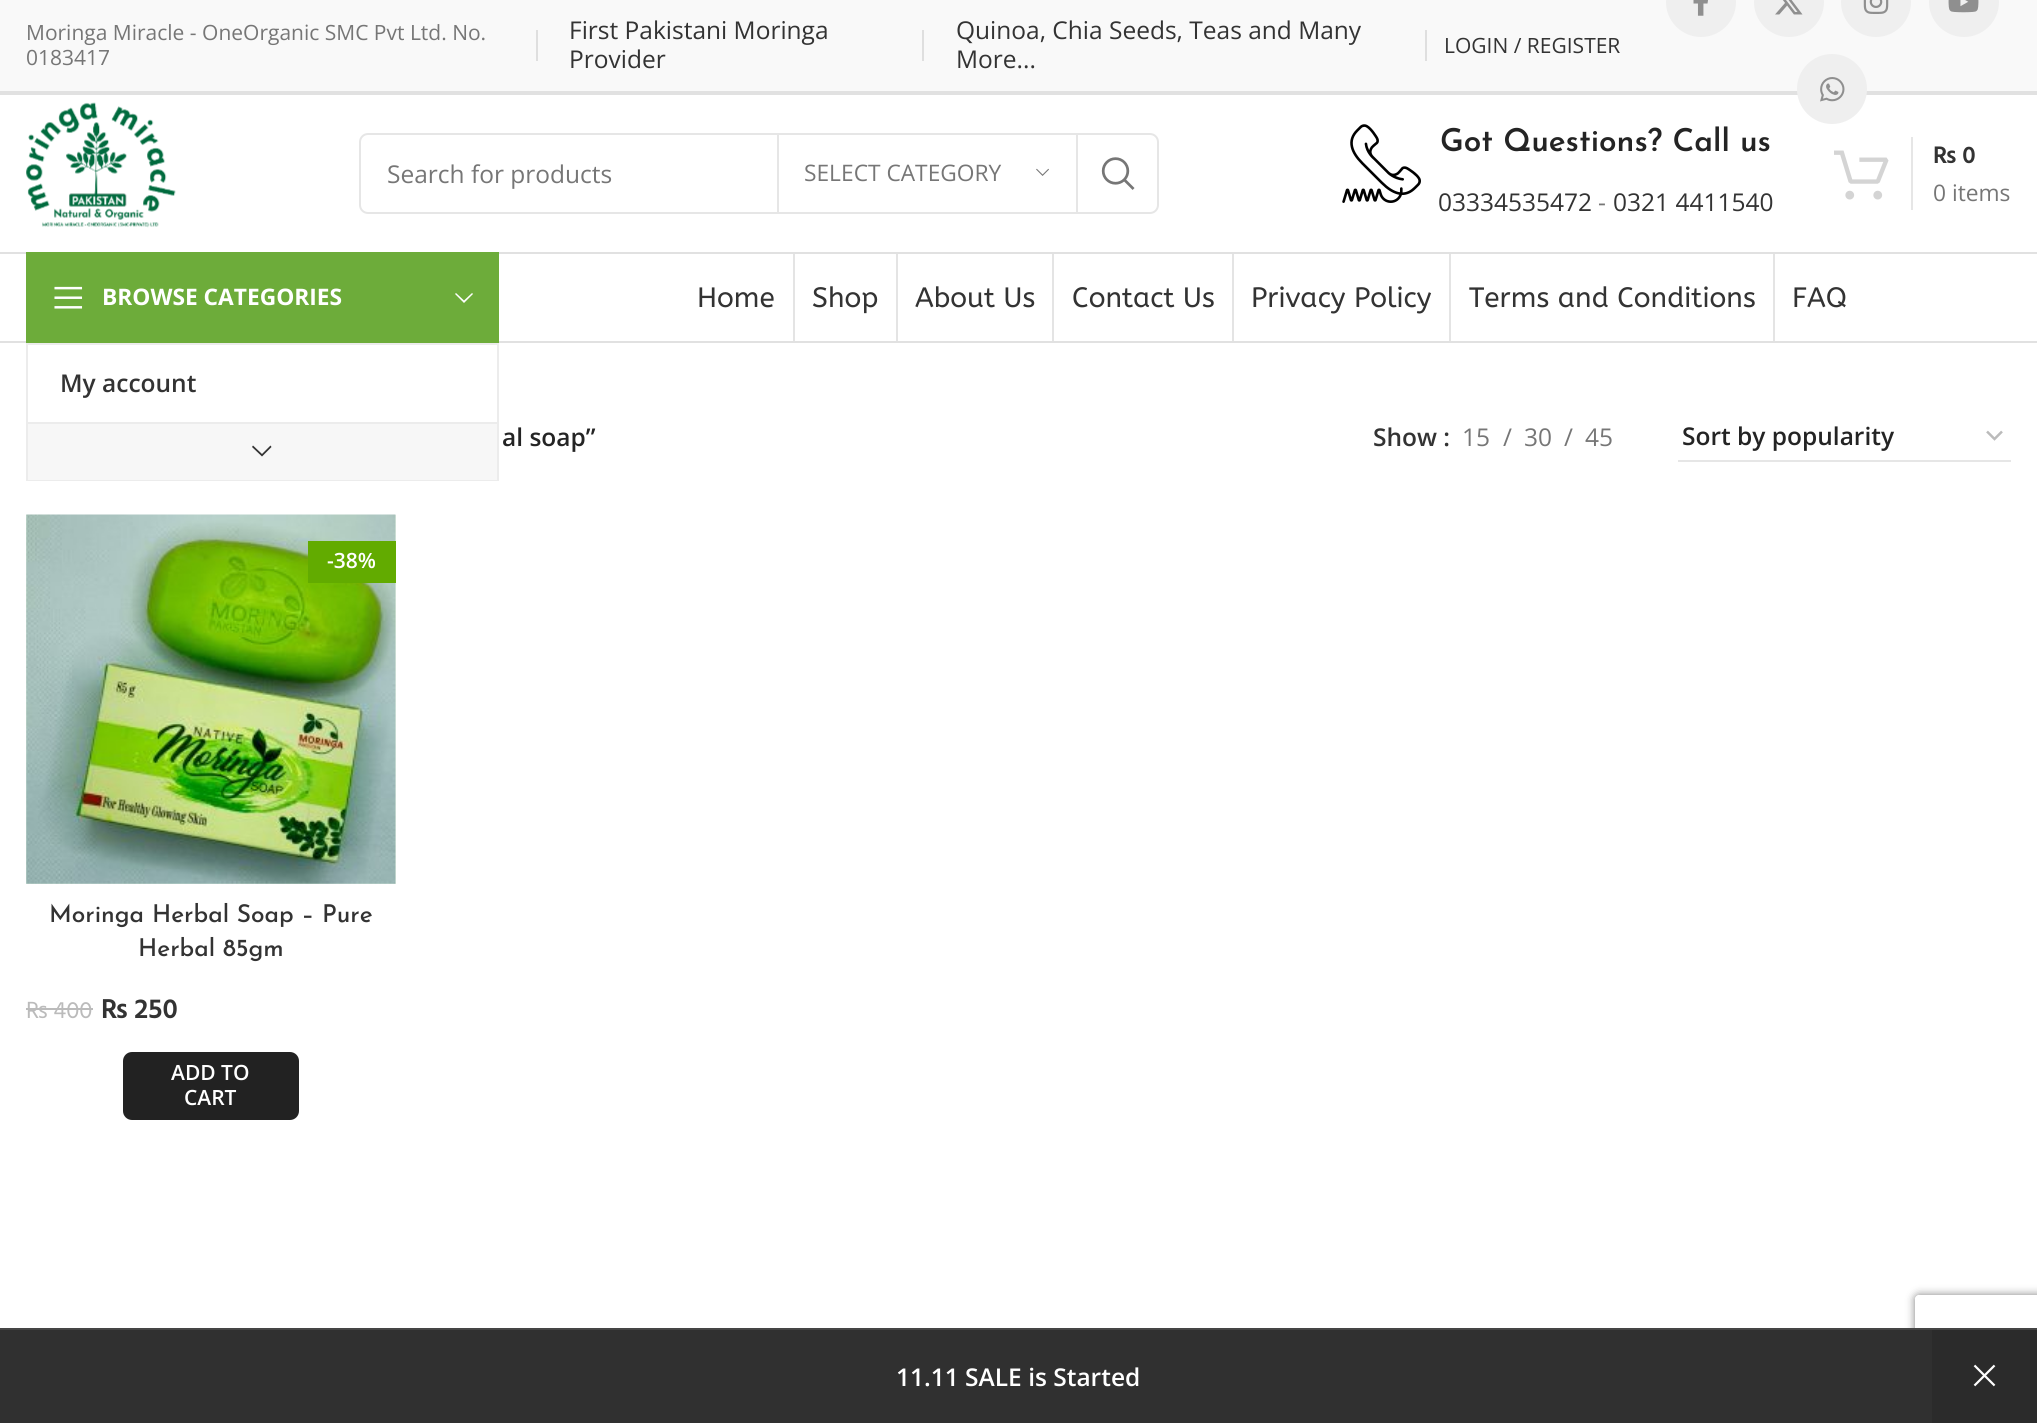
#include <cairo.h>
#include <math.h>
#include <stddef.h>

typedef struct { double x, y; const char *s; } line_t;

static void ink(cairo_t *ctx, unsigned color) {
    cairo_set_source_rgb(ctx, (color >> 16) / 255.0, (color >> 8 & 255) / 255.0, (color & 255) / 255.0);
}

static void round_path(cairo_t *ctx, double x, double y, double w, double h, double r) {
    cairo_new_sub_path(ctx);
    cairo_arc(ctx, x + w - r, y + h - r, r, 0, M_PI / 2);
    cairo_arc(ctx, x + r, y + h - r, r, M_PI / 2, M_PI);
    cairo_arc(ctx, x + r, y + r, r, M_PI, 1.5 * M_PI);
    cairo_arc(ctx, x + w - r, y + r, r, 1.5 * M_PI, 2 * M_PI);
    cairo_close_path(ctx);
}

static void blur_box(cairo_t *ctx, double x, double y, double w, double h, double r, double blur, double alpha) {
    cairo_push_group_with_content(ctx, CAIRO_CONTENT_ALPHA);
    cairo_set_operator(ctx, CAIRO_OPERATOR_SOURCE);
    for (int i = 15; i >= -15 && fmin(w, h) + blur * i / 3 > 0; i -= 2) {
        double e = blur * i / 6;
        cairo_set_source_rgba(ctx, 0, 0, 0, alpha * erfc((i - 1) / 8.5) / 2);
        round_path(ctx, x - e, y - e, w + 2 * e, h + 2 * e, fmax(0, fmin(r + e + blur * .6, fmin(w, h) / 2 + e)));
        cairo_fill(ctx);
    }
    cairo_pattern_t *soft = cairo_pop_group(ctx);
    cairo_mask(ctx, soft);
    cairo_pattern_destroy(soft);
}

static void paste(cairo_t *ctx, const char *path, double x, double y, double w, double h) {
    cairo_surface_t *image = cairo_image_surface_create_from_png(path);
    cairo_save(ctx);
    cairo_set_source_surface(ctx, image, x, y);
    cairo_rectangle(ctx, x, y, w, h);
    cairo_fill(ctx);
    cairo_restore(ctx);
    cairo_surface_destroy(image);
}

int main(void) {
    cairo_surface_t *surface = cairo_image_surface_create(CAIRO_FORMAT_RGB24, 2037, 1423);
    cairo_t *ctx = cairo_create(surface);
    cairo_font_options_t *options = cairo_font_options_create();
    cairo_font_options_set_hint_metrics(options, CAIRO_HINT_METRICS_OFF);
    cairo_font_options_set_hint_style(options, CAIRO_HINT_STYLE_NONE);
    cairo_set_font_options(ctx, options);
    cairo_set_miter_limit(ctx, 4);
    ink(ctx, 0xFFFFFF);
    cairo_paint(ctx);
    ink(ctx, 0xF9F9F9);
    cairo_rectangle(ctx, 0, 0, 2037, 91);
    cairo_fill(ctx);
    ink(ctx, 0xE1E1E1);
    cairo_rectangle(ctx, 0, 91, 2037, 4);
    cairo_fill(ctx);
    cairo_select_font_face(ctx, "Open Sans", CAIRO_FONT_SLANT_NORMAL, CAIRO_FONT_WEIGHT_NORMAL);
    cairo_set_font_size(ctx, 21);
    ink(ctx, 0x767676);
    cairo_move_to(ctx, 26, 40);
    cairo_show_text(ctx, "Moringa Miracle - OneOrganic SMC Pvt Ltd. No.");
    cairo_move_to(ctx, 26, 65);
    cairo_show_text(ctx, "0183417");
    ink(ctx, 0xDFDFDF);
    cairo_rectangle(ctx, 536, 30, 2, 31);
    cairo_fill(ctx);
    cairo_set_font_size(ctx, 24.5);
    ink(ctx, 0x333333);
    cairo_move_to(ctx, 569, 39);
    cairo_show_text(ctx, "First Pakistani Moringa");
    cairo_move_to(ctx, 569, 68);
    cairo_show_text(ctx, "Provider");
    ink(ctx, 0xDFDFDF);
    cairo_rectangle(ctx, 922, 30, 2, 31);
    cairo_fill(ctx);
    ink(ctx, 0x333333);
    cairo_move_to(ctx, 956, 39);
    cairo_show_text(ctx, "Quinoa, Chia Seeds, Teas and Many");
    cairo_move_to(ctx, 956, 68);
    cairo_show_text(ctx, "More...");
    ink(ctx, 0xDFDFDF);
    cairo_rectangle(ctx, 1425, 30, 2, 31);
    cairo_fill(ctx);
    cairo_set_font_size(ctx, 21);
    ink(ctx, 0x333333);
    cairo_move_to(ctx, 1444, 53);
    cairo_show_text(ctx, "LOGIN / REGISTER");
    ink(ctx, 0xEFEFEF);
    cairo_new_path(ctx);
    cairo_arc(ctx, 1701, 2, 35, 0, 2 * M_PI);
    cairo_fill(ctx);
    paste(ctx, "media/1.png", 1693, 0, 15, 16);
    cairo_arc(ctx, 1789, 2, 35, 0, 2 * M_PI);
    cairo_fill(ctx);
    paste(ctx, "media/2.png", 1775, 0, 28, 15);
    cairo_arc(ctx, 1876, 2, 35, 0, 2 * M_PI);
    cairo_fill(ctx);
    paste(ctx, "media/3.png", 1863, 0, 26, 14);
    cairo_arc(ctx, 1964, 2, 35, 0, 2 * M_PI);
    cairo_fill(ctx);
    paste(ctx, "media/4.png", 1948, 0, 31, 13);
    cairo_arc(ctx, 1832, 89, 35, 0, 2 * M_PI);
    cairo_fill(ctx);
    paste(ctx, "media/5.png", 1820, 77, 25, 25);
    ink(ctx, 0xE1E1E1);
    cairo_rectangle(ctx, 0, 252, 2037, 2);
    cairo_fill(ctx);
    paste(ctx, "media/6.png", 26, 102, 150, 126);
    round_path(ctx, 360, 134, 798, 79, 8);
    ink(ctx, 0xE6E6E6);
    cairo_stroke(ctx);
    cairo_set_font_size(ctx, 24.5);
    ink(ctx, 0x767676);
    cairo_move_to(ctx, 387, 183);
    cairo_show_text(ctx, "Search for products");
    ink(ctx, 0xE6E6E6);
    cairo_rectangle(ctx, 1076, 135, 2, 77);
    cairo_fill(ctx);
    cairo_rectangle(ctx, 777, 135, 2, 77);
    cairo_fill(ctx);
    cairo_set_font_size(ctx, 22.75);
    ink(ctx, 0x767676);
    cairo_move_to(ctx, 804, 181);
    cairo_show_text(ctx, "SELECT CATEGORY");
    paste(ctx, "media/7.png", 1036, 168, 13, 8);
    paste(ctx, "media/8.png", 1101, 157, 34, 33);
    paste(ctx, "media/9.png", 1342, 124, 79, 79);
    cairo_select_font_face(ctx, "Josefin Sans SemiBold", CAIRO_FONT_SLANT_NORMAL, CAIRO_FONT_WEIGHT_NORMAL);
    cairo_set_font_size(ctx, 31.5);
    ink(ctx, 0x242424);
    cairo_move_to(ctx, 1440, 151);
    cairo_show_text(ctx, "Got Questions? Call us");
    cairo_select_font_face(ctx, "Open Sans", CAIRO_FONT_SLANT_NORMAL, CAIRO_FONT_WEIGHT_NORMAL);
    cairo_set_font_size(ctx, 24.5);
    ink(ctx, 0x333333);
    cairo_move_to(ctx, 1438, 211);
    cairo_show_text(ctx, "03334535472");
    ink(ctx, 0x767676);
    cairo_move_to(ctx, 1598, 211);
    cairo_show_text(ctx, "-");
    ink(ctx, 0x333333);
    cairo_move_to(ctx, 1613, 211);
    cairo_show_text(ctx, "0321 4411540");
    paste(ctx, "media/10.png", 1834, 150, 55, 50);
    ink(ctx, 0xE6E6E6);
    cairo_rectangle(ctx, 1911, 137, 2, 73);
    cairo_fill(ctx);
    cairo_select_font_face(ctx, "Hind SemiBold", CAIRO_FONT_SLANT_NORMAL, CAIRO_FONT_WEIGHT_NORMAL);
    ink(ctx, 0x333333);
    cairo_move_to(ctx, 1933, 163);
    cairo_show_text(ctx, "₨ 0");
    cairo_select_font_face(ctx, "Open Sans", CAIRO_FONT_SLANT_NORMAL, CAIRO_FONT_WEIGHT_NORMAL);
    cairo_set_font_size(ctx, 22.75);
    ink(ctx, 0x767676);
    cairo_move_to(ctx, 1933, 201);
    cairo_show_text(ctx, "0 items");
    ink(ctx, 0xE1E1E1);
    cairo_rectangle(ctx, 0, 341, 2037, 2);
    cairo_fill(ctx);
    ink(ctx, 0x6DAC3A);
    cairo_rectangle(ctx, 26, 252, 473, 91);
    cairo_fill(ctx);
    paste(ctx, "media/11.png", 54, 286, 29, 23);
    cairo_select_font_face(ctx, "Open Sans", CAIRO_FONT_SLANT_NORMAL, CAIRO_FONT_WEIGHT_BOLD);
    ink(ctx, 0xFFFFFF);
    cairo_move_to(ctx, 102, 305);
    cairo_show_text(ctx, "BROWSE CATEGORIES");
    cairo_new_path(ctx);
    cairo_move_to(ctx, 472, 293);
    cairo_line_to(ctx, 464, 300.5);
    cairo_line_to(ctx, 456, 293);
    cairo_line_to(ctx, 455, 294);
    cairo_line_to(ctx, 464, 303);
    cairo_line_to(ctx, 473, 294);
    cairo_close_path(ctx);
    cairo_fill(ctx);
    cairo_rectangle(ctx, 27, 344, 471, 136);
    ink(ctx, 0xECECEC);
    cairo_stroke(ctx);
    cairo_rectangle(ctx, 28, 422, 469, 2);
    cairo_fill(ctx);
    cairo_select_font_face(ctx, "Open Sans SemiBold", CAIRO_FONT_SLANT_NORMAL, CAIRO_FONT_WEIGHT_NORMAL);
    cairo_set_font_size(ctx, 24.5);
    ink(ctx, 0x333333);
    cairo_move_to(ctx, 60, 392);
    cairo_show_text(ctx, "My account");
    ink(ctx, 0xF7F7F7);
    cairo_rectangle(ctx, 28, 424, 469, 56);
    cairo_fill(ctx);
    ink(ctx, 0x333333);
    cairo_new_path(ctx);
    cairo_move_to(ctx, 270.5, 445.5);
    cairo_line_to(ctx, 262, 454);
    cairo_line_to(ctx, 253, 445.5);
    cairo_line_to(ctx, 252, 447);
    cairo_line_to(ctx, 262, 456.5);
    cairo_line_to(ctx, 271.5, 447);
    cairo_close_path(ctx);
    cairo_fill(ctx);
    cairo_select_font_face(ctx, "ABeeZee", CAIRO_FONT_SLANT_NORMAL, CAIRO_FONT_WEIGHT_NORMAL);
    cairo_set_font_size(ctx, 28);
    cairo_move_to(ctx, 697, 307);
    cairo_show_text(ctx, "Home");
    ink(ctx, 0xE4E4E4);
    cairo_rectangle(ctx, 793, 254, 2, 87);
    cairo_fill(ctx);
    ink(ctx, 0x333333);
    cairo_move_to(ctx, 812, 307);
    cairo_show_text(ctx, "Shop");
    ink(ctx, 0xE4E4E4);
    cairo_rectangle(ctx, 896, 254, 2, 87);
    cairo_fill(ctx);
    ink(ctx, 0x333333);
    cairo_move_to(ctx, 915, 307);
    cairo_show_text(ctx, "About Us");
    ink(ctx, 0xE4E4E4);
    cairo_rectangle(ctx, 1052, 254, 2, 87);
    cairo_fill(ctx);
    ink(ctx, 0x333333);
    cairo_move_to(ctx, 1072, 307);
    cairo_show_text(ctx, "Contact Us");
    ink(ctx, 0xE4E4E4);
    cairo_rectangle(ctx, 1232, 254, 2, 87);
    cairo_fill(ctx);
    ink(ctx, 0x333333);
    cairo_move_to(ctx, 1251, 307);
    cairo_show_text(ctx, "Privacy Policy");
    ink(ctx, 0xE4E4E4);
    cairo_rectangle(ctx, 1449, 254, 2, 87);
    cairo_fill(ctx);
    ink(ctx, 0x333333);
    cairo_move_to(ctx, 1469, 307);
    cairo_show_text(ctx, "Terms and Conditions");
    ink(ctx, 0xE4E4E4);
    cairo_rectangle(ctx, 1773, 254, 2, 87);
    cairo_fill(ctx);
    ink(ctx, 0x333333);
    cairo_move_to(ctx, 1792, 307);
    cairo_show_text(ctx, "FAQ");
    cairo_select_font_face(ctx, "Open Sans SemiBold", CAIRO_FONT_SLANT_NORMAL, CAIRO_FONT_WEIGHT_NORMAL);
    cairo_set_font_size(ctx, 24.5);
    ink(ctx, 0x242424);
    cairo_move_to(ctx, 502, 446);
    cairo_show_text(ctx, "al soap”");
    ink(ctx, 0x333333);
    cairo_move_to(ctx, 1373, 446);
    cairo_show_text(ctx, "Show :");
    cairo_select_font_face(ctx, "Open Sans", CAIRO_FONT_SLANT_NORMAL, CAIRO_FONT_WEIGHT_NORMAL);
    ink(ctx, 0x767676);
    {
        static const line_t items[] = {
            {1462, 446, "15"},
            {1503, 446, "/"},
            {1524, 446, "30"},
            {1564, 446, "/"},
            {1585, 446, "45"},
        };
        for (size_t i = 0; i < sizeof items / sizeof *items; i++) {
            cairo_move_to(ctx, items[i].x, items[i].y);
            cairo_show_text(ctx, items[i].s);
        }
    }
    cairo_new_path(ctx);
    cairo_move_to(ctx, 1987, 431.5);
    cairo_line_to(ctx, 1994.5, 439);
    cairo_line_to(ctx, 2002, 431.5);
    ink(ctx, 0xBBBBBB);
    cairo_set_line_width(ctx, 2.5);
    cairo_stroke(ctx);
    ink(ctx, 0xE6E6E6);
    cairo_rectangle(ctx, 1678, 460, 333, 2);
    cairo_fill(ctx);
    cairo_select_font_face(ctx, "Open Sans SemiBold", CAIRO_FONT_SLANT_NORMAL, CAIRO_FONT_WEIGHT_NORMAL);
    ink(ctx, 0x242424);
    cairo_move_to(ctx, 1682, 445);
    cairo_show_text(ctx, "Sort by popularity");
    ink(ctx, 0xE8F5E6);
    cairo_rectangle(ctx, 26, 515, 370, 369);
    cairo_fill(ctx);
    paste(ctx, "media/12.png", 26, 514, 370, 370);
    ink(ctx, 0x62AB00);
    cairo_rectangle(ctx, 308, 541, 88, 42);
    cairo_fill(ctx);
    cairo_set_font_size(ctx, 21);
    ink(ctx, 0xFFFFFF);
    cairo_move_to(ctx, 327, 568);
    cairo_show_text(ctx, "-38%");
    cairo_select_font_face(ctx, "Josefin Sans Medium", CAIRO_FONT_SLANT_NORMAL, CAIRO_FONT_WEIGHT_NORMAL);
    cairo_set_font_size(ctx, 24.5);
    ink(ctx, 0x333333);
    cairo_move_to(ctx, 49, 922);
    cairo_show_text(ctx, "Moringa Herbal Soap – Pure");
    cairo_move_to(ctx, 138, 956);
    cairo_show_text(ctx, "Herbal 85gm");
    cairo_select_font_face(ctx, "Hind", CAIRO_FONT_SLANT_NORMAL, CAIRO_FONT_WEIGHT_NORMAL);
    cairo_set_font_size(ctx, 24);
    ink(ctx, 0xBBBBBB);
    cairo_move_to(ctx, 26, 1018);
    cairo_show_text(ctx, "₨ 400");
    cairo_rectangle(ctx, 26, 1008, 67, 2);
    cairo_fill(ctx);
    cairo_select_font_face(ctx, "Hind SemiBold", CAIRO_FONT_SLANT_NORMAL, CAIRO_FONT_WEIGHT_NORMAL);
    cairo_set_font_size(ctx, 28);
    ink(ctx, 0x333333);
    cairo_move_to(ctx, 101, 1018);
    cairo_show_text(ctx, "₨ 250");
    ink(ctx, 0x222222);
    round_path(ctx, 123, 1052, 176, 68, 9);
    cairo_fill(ctx);
    cairo_select_font_face(ctx, "Open Sans SemiBold", CAIRO_FONT_SLANT_NORMAL, CAIRO_FONT_WEIGHT_NORMAL);
    cairo_set_font_size(ctx, 21);
    ink(ctx, 0xFFFFFF);
    cairo_move_to(ctx, 171, 1080);
    cairo_show_text(ctx, "ADD TO");
    cairo_move_to(ctx, 184, 1105);
    cairo_show_text(ctx, "CART");
    cairo_save(ctx);
    cairo_set_fill_rule(ctx, CAIRO_FILL_RULE_EVEN_ODD);
    cairo_new_path(ctx);
    cairo_move_to(ctx, 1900, 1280);
    cairo_line_to(ctx, 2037, 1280);
    cairo_line_to(ctx, 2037, 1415);
    cairo_line_to(ctx, 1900, 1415);
    cairo_close_path(ctx);
    cairo_move_to(ctx, 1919, 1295);
    cairo_line_to(ctx, 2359, 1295);
    cairo_curve_to(ctx, 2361, 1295, 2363, 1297, 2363, 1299);
    cairo_line_to(ctx, 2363, 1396);
    cairo_curve_to(ctx, 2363, 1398, 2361, 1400, 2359, 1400);
    cairo_line_to(ctx, 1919, 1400);
    cairo_curve_to(ctx, 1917, 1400, 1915, 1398, 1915, 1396);
    cairo_line_to(ctx, 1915, 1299);
    cairo_curve_to(ctx, 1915, 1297, 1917, 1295, 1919, 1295);
    cairo_close_path(ctx);
    cairo_clip(ctx);
    ink(ctx, 0x808080);
    blur_box(ctx, 1915, 1295, 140, 105, 4, 4.5, 1);
    cairo_restore(ctx);
    ink(ctx, 0x303030);
    cairo_rectangle(ctx, 0, 1330, 1932, 93);
    cairo_fill(ctx);
    ink(ctx, 0x454545);
    cairo_rectangle(ctx, 0, 1328, 2037, 2);
    cairo_fill(ctx);
    cairo_set_font_size(ctx, 24.5);
    ink(ctx, 0xFFFFFF);
    cairo_move_to(ctx, 896, 1386);
    cairo_show_text(ctx, "11.11 SALE is Started");
    ink(ctx, 0x2B2B2B);
    cairo_rectangle(ctx, 1932, 1330, 105, 93);
    cairo_fill(ctx);
    paste(ctx, "media/13.png", 1973, 1364, 23, 23);
    cairo_surface_write_to_png(surface, "image.png");
    cairo_font_options_destroy(options);
    cairo_destroy(ctx);
    cairo_surface_destroy(surface);
    return 0;
}
